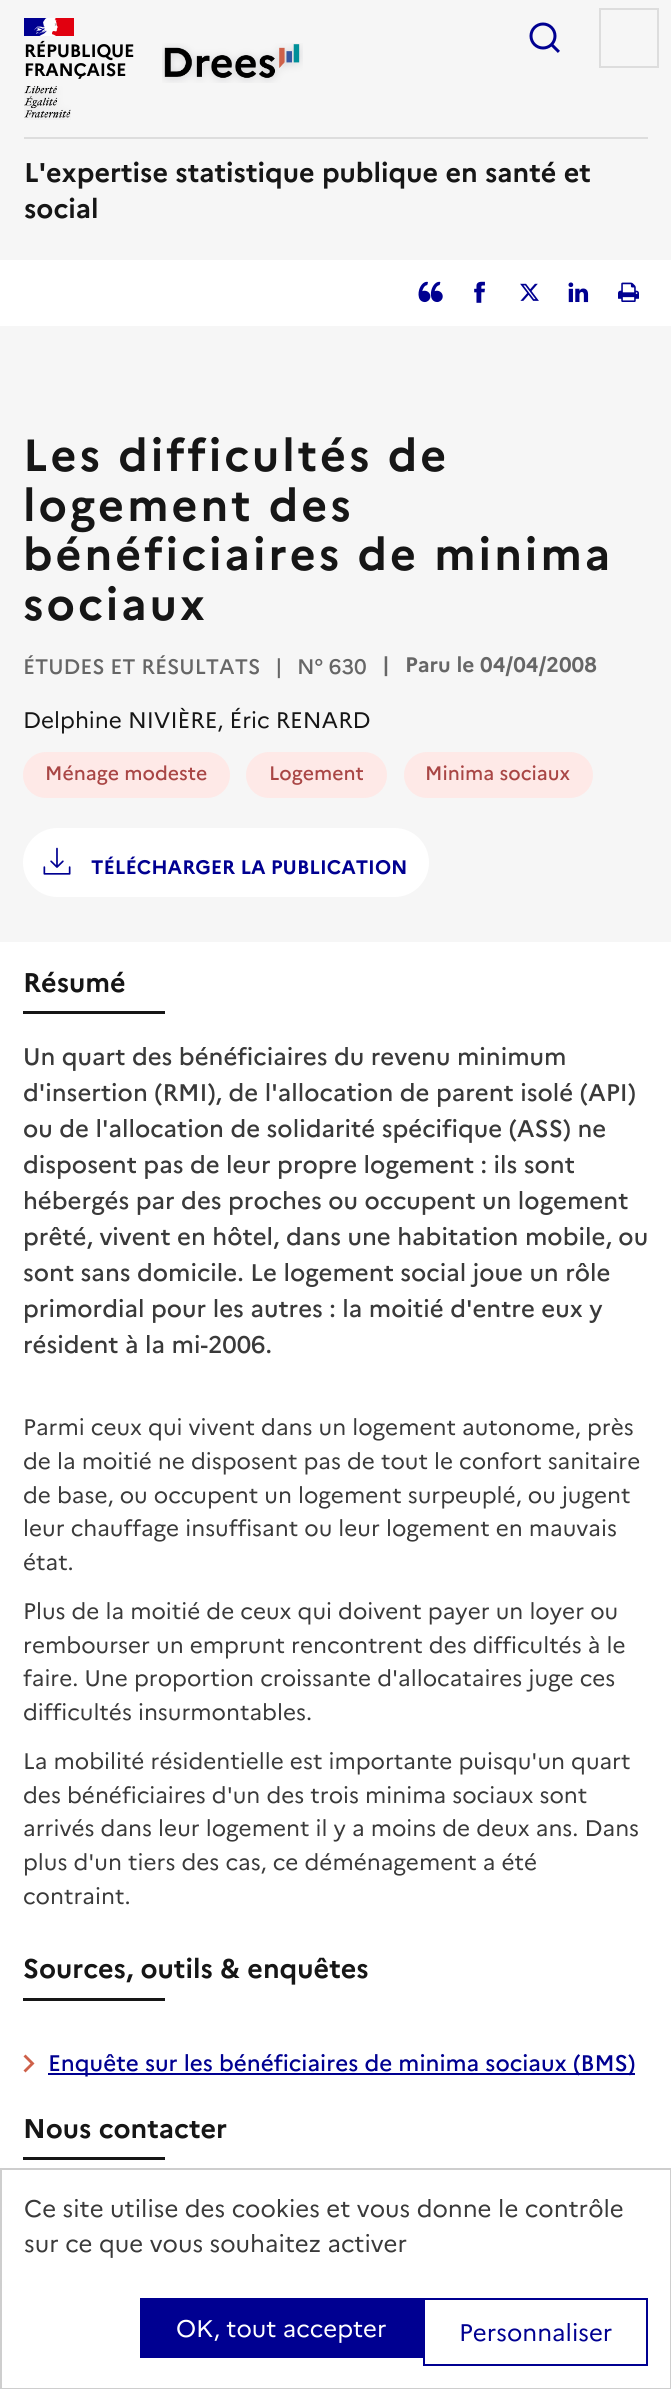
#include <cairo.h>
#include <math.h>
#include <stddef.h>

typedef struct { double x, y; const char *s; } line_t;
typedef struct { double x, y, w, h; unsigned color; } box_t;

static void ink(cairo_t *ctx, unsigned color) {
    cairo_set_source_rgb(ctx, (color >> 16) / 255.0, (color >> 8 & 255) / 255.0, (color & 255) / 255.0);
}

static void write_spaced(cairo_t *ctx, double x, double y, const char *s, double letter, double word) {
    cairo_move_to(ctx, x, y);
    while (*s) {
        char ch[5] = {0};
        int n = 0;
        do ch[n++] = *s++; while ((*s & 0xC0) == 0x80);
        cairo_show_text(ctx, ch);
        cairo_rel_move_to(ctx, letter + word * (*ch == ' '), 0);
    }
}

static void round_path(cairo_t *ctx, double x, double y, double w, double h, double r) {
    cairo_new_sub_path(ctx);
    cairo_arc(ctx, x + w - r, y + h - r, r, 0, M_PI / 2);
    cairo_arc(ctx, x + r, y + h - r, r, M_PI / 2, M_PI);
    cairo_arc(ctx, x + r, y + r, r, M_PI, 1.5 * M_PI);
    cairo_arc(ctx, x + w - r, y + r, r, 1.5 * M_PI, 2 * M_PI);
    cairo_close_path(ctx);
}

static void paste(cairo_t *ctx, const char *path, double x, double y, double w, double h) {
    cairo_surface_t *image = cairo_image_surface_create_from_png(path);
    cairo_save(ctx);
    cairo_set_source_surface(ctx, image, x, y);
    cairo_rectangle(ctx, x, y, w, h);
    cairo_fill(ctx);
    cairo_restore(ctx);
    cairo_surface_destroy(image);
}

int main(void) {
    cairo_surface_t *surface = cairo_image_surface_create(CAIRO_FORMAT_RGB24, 671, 2389);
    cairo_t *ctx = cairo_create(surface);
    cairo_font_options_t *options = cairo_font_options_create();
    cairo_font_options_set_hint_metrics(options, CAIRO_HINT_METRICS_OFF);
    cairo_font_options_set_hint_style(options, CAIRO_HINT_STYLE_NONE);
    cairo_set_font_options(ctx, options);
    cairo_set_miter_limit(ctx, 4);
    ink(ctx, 0xFFFFFF);
    cairo_paint(ctx);
    {
        static const box_t items[] = {
            {0, 0, 671, 260, 0xF6F6F6},
            {24, 18, 23, 18, 0x000091},
            {51, 18, 23, 18, 0xE1000F},
        };
        for (size_t i = 0; i < sizeof items / sizeof *items; i++) {
            ink(ctx, items[i].color);
            cairo_rectangle(ctx, items[i].x, items[i].y, items[i].w, items[i].h);
            cairo_fill(ctx);
        }
    }
    paste(ctx, "media/1.png", 34, 18, 24, 18);
    cairo_select_font_face(ctx, "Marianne", CAIRO_FONT_SLANT_NORMAL, CAIRO_FONT_WEIGHT_BOLD);
    cairo_set_font_size(ctx, 18);
    ink(ctx, 0x000000);
    write_spaced(ctx, 24, 57, "RÉPUBLIQUE", -0.25, 0);
    write_spaced(ctx, 24, 76, "FRANÇAISE", -0.25, 0);
    paste(ctx, "media/2.png", 24, 86, 47, 34);
    paste(ctx, "media/3.png", 162, 43, 141, 40);
    paste(ctx, "media/4.png", 529, 22, 31, 31);
    cairo_rectangle(ctx, 600, 9, 58, 58);
    ink(ctx, 0xDDDDDD);
    cairo_stroke(ctx);
    cairo_rectangle(ctx, 24, 137, 624, 2);
    cairo_fill(ctx);
    cairo_set_font_size(ctx, 27);
    ink(ctx, 0x161616);
    cairo_move_to(ctx, 24, 182);
    cairo_show_text(ctx, "L'expertise statistique publique en santé et");
    cairo_move_to(ctx, 24, 218);
    cairo_show_text(ctx, "social");
    paste(ctx, "media/5.png", 418, 281, 25, 22);
    paste(ctx, "media/6.png", 474, 281, 11, 22);
    paste(ctx, "media/7.png", 520, 283, 19, 18);
    paste(ctx, "media/8.png", 568, 282, 21, 21);
    paste(ctx, "media/9.png", 618, 282, 21, 20);
    ink(ctx, 0xF6F6F6);
    cairo_rectangle(ctx, 0, 326, 671, 616);
    cairo_fill(ctx);
    cairo_set_font_size(ctx, 45);
    ink(ctx, 0x161616);
    {
        static const line_t items[] = {
            {23, 471, "Les difficultés de"},
            {23, 521, "logement des"},
            {23, 570, "bénéficiaires de minima"},
            {23, 620, "sociaux"},
        };
        for (size_t i = 0; i < sizeof items / sizeof *items; i++) {
            write_spaced(ctx, items[i].x, items[i].y, items[i].s, 3, 0);
        }
    }
    cairo_select_font_face(ctx, "Marianne Medium", CAIRO_FONT_SLANT_NORMAL, CAIRO_FONT_WEIGHT_NORMAL);
    cairo_set_font_size(ctx, 21);
    ink(ctx, 0x666666);
    {
        static const line_t items[] = {
            {23, 674, "ÉTUDES ET RÉSULTATS"},
            {275, 674, "|"},
            {297, 674, "N° 630"},
        };
        for (size_t i = 0; i < sizeof items / sizeof *items; i++) {
            cairo_move_to(ctx, items[i].x, items[i].y);
            cairo_show_text(ctx, items[i].s);
        }
    }
    cairo_select_font_face(ctx, "Marianne", CAIRO_FONT_SLANT_NORMAL, CAIRO_FONT_WEIGHT_BOLD);
    cairo_move_to(ctx, 382, 672);
    cairo_show_text(ctx, "|");
    cairo_move_to(ctx, 405, 672);
    cairo_show_text(ctx, "Paru le 04/04/2008");
    cairo_select_font_face(ctx, "Marianne", CAIRO_FONT_SLANT_NORMAL, CAIRO_FONT_WEIGHT_NORMAL);
    cairo_set_font_size(ctx, 22.5);
    ink(ctx, 0x161616);
    cairo_move_to(ctx, 23, 728);
    cairo_show_text(ctx, "Delphine NIVIÈRE, Éric RENARD");
    ink(ctx, 0xFEE9E7);
    round_path(ctx, 23, 752, 207, 46, 23);
    cairo_fill(ctx);
    cairo_select_font_face(ctx, "Marianne Medium", CAIRO_FONT_SLANT_NORMAL, CAIRO_FONT_WEIGHT_NORMAL);
    cairo_set_font_size(ctx, 19.5);
    ink(ctx, 0xA94645);
    cairo_move_to(ctx, 45, 780);
    cairo_show_text(ctx, "Ménage modeste");
    ink(ctx, 0xFEE9E7);
    round_path(ctx, 246, 752, 141, 46, 23);
    cairo_fill(ctx);
    ink(ctx, 0xA94645);
    cairo_move_to(ctx, 269, 780);
    cairo_show_text(ctx, "Logement");
    ink(ctx, 0xFEE9E7);
    round_path(ctx, 404, 752, 189, 46, 23);
    cairo_fill(ctx);
    ink(ctx, 0xA94645);
    cairo_move_to(ctx, 425, 780);
    cairo_show_text(ctx, "Minima sociaux");
    ink(ctx, 0xFFFFFF);
    round_path(ctx, 23, 828, 406, 69, 34.5);
    cairo_fill(ctx);
    paste(ctx, "media/10.png", 43, 847, 28, 28);
    cairo_select_font_face(ctx, "Marianne", CAIRO_FONT_SLANT_NORMAL, CAIRO_FONT_WEIGHT_BOLD);
    ink(ctx, 0x000091);
    cairo_move_to(ctx, 91, 874);
    cairo_show_text(ctx, "TÉLÉCHARGER LA PUBLICATION");
    cairo_set_font_size(ctx, 27);
    ink(ctx, 0x161616);
    cairo_move_to(ctx, 23, 992);
    cairo_show_text(ctx, "Résumé");
    cairo_rectangle(ctx, 23, 1011, 142, 3);
    cairo_fill(ctx);
    cairo_select_font_face(ctx, "Marianne Medium", CAIRO_FONT_SLANT_NORMAL, CAIRO_FONT_WEIGHT_NORMAL);
    cairo_set_font_size(ctx, 24);
    ink(ctx, 0x3A3A3A);
    {
        static const line_t items[] = {
            {23, 1065, "Un quart des bénéficiaires du revenu minimum"},
            {23, 1101, "d'insertion (RMI), de l'allocation de parent isolé (API)"},
            {23, 1137, "ou de l'allocation de solidarité spécifique (ASS) ne"},
            {23, 1173, "disposent pas de leur propre logement : ils sont"},
            {23, 1209, "hébergés par des proches ou occupent un logement"},
            {23, 1245, "prêté, vivent en hôtel, dans une habitation mobile, ou"},
            {23, 1281, "sont sans domicile. Le logement social joue un rôle"},
            {23, 1317, "primordial pour les autres : la moitié d'entre eux y"},
            {23, 1353, "résident à la mi-2006."},
        };
        for (size_t i = 0; i < sizeof items / sizeof *items; i++) {
            cairo_move_to(ctx, items[i].x, items[i].y);
            cairo_show_text(ctx, items[i].s);
        }
    }
    cairo_select_font_face(ctx, "Marianne", CAIRO_FONT_SLANT_NORMAL, CAIRO_FONT_WEIGHT_NORMAL);
    cairo_set_font_size(ctx, 22.5);
    {
        static const line_t items[] = {
            {23, 1435, "Parmi ceux qui vivent dans un logement autonome, près"},
            {23, 1469, "de la moitié ne disposent pas de tout le confort sanitaire"},
            {23, 1503, "de base, ou occupent un logement surpeuplé, ou jugent"},
            {23, 1536, "leur chauffage insuffisant ou leur logement en mauvais"},
            {23, 1570, "état."},
            {23, 1619, "Plus de la moitié de ceux qui doivent payer un loyer ou"},
            {23, 1653, "rembourser un emprunt rencontrent des difficultés à le"},
            {23, 1686, "faire. Une proportion croissante d'allocataires juge ces"},
            {23, 1720, "difficultés insurmontables."},
            {23, 1769, "La mobilité résidentielle est importante puisqu'un quart"},
            {23, 1803, "des bénéficiaires d'un des trois minima sociaux sont"},
            {23, 1836, "arrivés dans leur logement il y a moins de deux ans. Dans"},
            {23, 1870, "plus d'un tiers des cas, ce déménagement a été"},
            {23, 1904, "contraint."},
        };
        for (size_t i = 0; i < sizeof items / sizeof *items; i++) {
            cairo_move_to(ctx, items[i].x, items[i].y);
            cairo_show_text(ctx, items[i].s);
        }
    }
    cairo_select_font_face(ctx, "Marianne", CAIRO_FONT_SLANT_NORMAL, CAIRO_FONT_WEIGHT_BOLD);
    cairo_set_font_size(ctx, 27);
    ink(ctx, 0x161616);
    cairo_move_to(ctx, 23, 1978);
    cairo_show_text(ctx, "Sources, outils & enquêtes");
    cairo_rectangle(ctx, 23, 1998, 142, 3);
    cairo_fill(ctx);
    ink(ctx, 0xCE614A);
    cairo_new_path(ctx);
    cairo_move_to(ctx, 25.5, 2054.5);
    cairo_line_to(ctx, 23.5, 2056.5);
    cairo_line_to(ctx, 30.5, 2063.5);
    cairo_line_to(ctx, 23.5, 2070.5);
    cairo_line_to(ctx, 25.5, 2072.5);
    cairo_line_to(ctx, 34.5, 2063.5);
    cairo_close_path(ctx);
    cairo_fill(ctx);
    ink(ctx, 0x000091);
    cairo_rectangle(ctx, 48, 2073, 587, 2);
    cairo_fill(ctx);
    cairo_select_font_face(ctx, "Marianne Medium", CAIRO_FONT_SLANT_NORMAL, CAIRO_FONT_WEIGHT_NORMAL);
    cairo_set_font_size(ctx, 22.5);
    cairo_move_to(ctx, 48, 2071);
    cairo_show_text(ctx, "Enquête sur les bénéficiaires de minima sociaux (BMS)");
    cairo_select_font_face(ctx, "Marianne", CAIRO_FONT_SLANT_NORMAL, CAIRO_FONT_WEIGHT_BOLD);
    cairo_set_font_size(ctx, 27);
    ink(ctx, 0x161616);
    cairo_move_to(ctx, 23, 2138);
    cairo_show_text(ctx, "Nous contacter");
    cairo_rectangle(ctx, 23, 2157, 142, 3);
    cairo_fill(ctx);
    cairo_rectangle(ctx, 1, 2169, 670, 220);
    ink(ctx, 0xCECECE);
    cairo_stroke(ctx);
    cairo_select_font_face(ctx, "Marianne", CAIRO_FONT_SLANT_NORMAL, CAIRO_FONT_WEIGHT_NORMAL);
    cairo_set_font_size(ctx, 24);
    ink(ctx, 0x3A3A3A);
    cairo_move_to(ctx, 24, 2217);
    cairo_show_text(ctx, "Ce site utilise des cookies et vous donne le contrôle");
    cairo_move_to(ctx, 24, 2252);
    cairo_show_text(ctx, "sur ce que vous souhaitez activer");
    ink(ctx, 0x000091);
    cairo_rectangle(ctx, 140, 2298, 283, 60);
    cairo_fill(ctx);
    ink(ctx, 0xFFFFFF);
    cairo_move_to(ctx, 176, 2337);
    cairo_show_text(ctx, "OK, tout accepter");
    cairo_rectangle(ctx, 424, 2299, 223, 66);
    ink(ctx, 0x000091);
    cairo_stroke(ctx);
    cairo_move_to(ctx, 459, 2341);
    cairo_show_text(ctx, "Personnaliser");
    cairo_surface_write_to_png(surface, "image.png");
    cairo_font_options_destroy(options);
    cairo_destroy(ctx);
    cairo_surface_destroy(surface);
    return 0;
}
